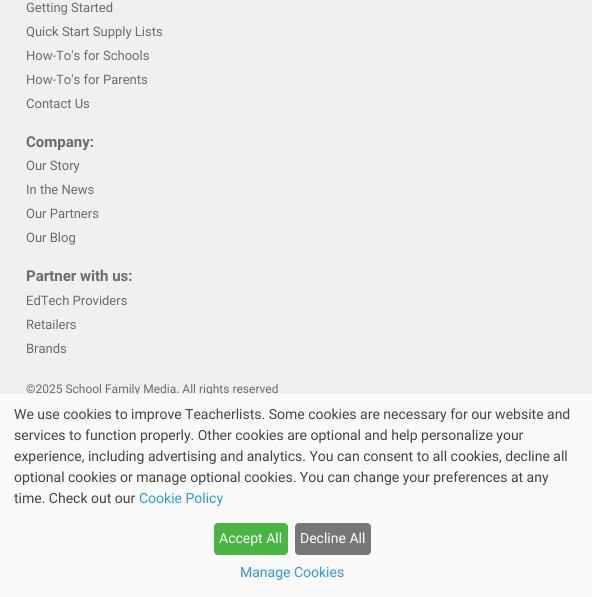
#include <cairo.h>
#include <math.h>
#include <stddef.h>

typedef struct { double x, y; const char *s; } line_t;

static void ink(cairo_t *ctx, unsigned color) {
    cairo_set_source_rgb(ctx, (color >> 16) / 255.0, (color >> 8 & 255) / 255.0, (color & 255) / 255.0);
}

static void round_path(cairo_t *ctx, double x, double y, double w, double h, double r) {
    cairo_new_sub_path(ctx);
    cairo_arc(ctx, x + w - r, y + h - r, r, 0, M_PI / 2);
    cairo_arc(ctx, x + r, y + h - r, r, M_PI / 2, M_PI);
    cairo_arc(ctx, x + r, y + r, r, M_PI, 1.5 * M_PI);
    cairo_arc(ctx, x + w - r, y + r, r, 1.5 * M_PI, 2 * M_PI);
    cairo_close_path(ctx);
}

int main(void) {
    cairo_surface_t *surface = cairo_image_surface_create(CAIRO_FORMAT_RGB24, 592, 597);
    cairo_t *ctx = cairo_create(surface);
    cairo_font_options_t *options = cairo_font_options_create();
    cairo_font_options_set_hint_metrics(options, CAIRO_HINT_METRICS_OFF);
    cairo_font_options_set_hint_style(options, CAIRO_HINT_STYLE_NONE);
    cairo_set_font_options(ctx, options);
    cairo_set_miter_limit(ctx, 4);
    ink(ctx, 0xF1F0EE);
    cairo_paint(ctx);
    cairo_select_font_face(ctx, "Roboto", CAIRO_FONT_SLANT_NORMAL, CAIRO_FONT_WEIGHT_NORMAL);
    cairo_set_font_size(ctx, 13);
    ink(ctx, 0x6B6B6B);
    {
        static const line_t items[] = {
            {26, 12, "Getting Started"},
            {26, 36, "Quick Start Supply Lists"},
            {26, 60, "How-To's for Schools"},
            {26, 84, "How-To's for Parents"},
            {26, 108, "Contact Us"},
        };
        for (size_t i = 0; i < sizeof items / sizeof *items; i++) {
            cairo_move_to(ctx, items[i].x, items[i].y);
            cairo_show_text(ctx, items[i].s);
        }
    }
    cairo_select_font_face(ctx, "Roboto", CAIRO_FONT_SLANT_NORMAL, CAIRO_FONT_WEIGHT_BOLD);
    cairo_set_font_size(ctx, 15);
    cairo_move_to(ctx, 26, 147);
    cairo_show_text(ctx, "Company:");
    cairo_select_font_face(ctx, "Roboto", CAIRO_FONT_SLANT_NORMAL, CAIRO_FONT_WEIGHT_NORMAL);
    cairo_set_font_size(ctx, 13);
    {
        static const line_t items[] = {
            {26, 170, "Our Story"},
            {26, 194, "In the News"},
            {26, 218, "Our Partners"},
            {26, 242, "Our Blog"},
        };
        for (size_t i = 0; i < sizeof items / sizeof *items; i++) {
            cairo_move_to(ctx, items[i].x, items[i].y);
            cairo_show_text(ctx, items[i].s);
        }
    }
    cairo_select_font_face(ctx, "Roboto", CAIRO_FONT_SLANT_NORMAL, CAIRO_FONT_WEIGHT_BOLD);
    cairo_set_font_size(ctx, 15);
    cairo_move_to(ctx, 26, 281);
    cairo_show_text(ctx, "Partner with us:");
    cairo_select_font_face(ctx, "Roboto", CAIRO_FONT_SLANT_NORMAL, CAIRO_FONT_WEIGHT_NORMAL);
    cairo_set_font_size(ctx, 13);
    {
        static const line_t items[] = {
            {26, 305, "EdTech Providers"},
            {26, 329, "Retailers"},
            {26, 353, "Brands"},
        };
        for (size_t i = 0; i < sizeof items / sizeof *items; i++) {
            cairo_move_to(ctx, items[i].x, items[i].y);
            cairo_show_text(ctx, items[i].s);
        }
    }
    cairo_set_font_size(ctx, 12);
    cairo_move_to(ctx, 26, 393);
    cairo_show_text(ctx, "©2025 School Family Media. All rights reserved");
    ink(ctx, 0xFAFAFA);
    cairo_rectangle(ctx, 0, 394, 592, 203);
    cairo_fill(ctx);
    cairo_set_font_size(ctx, 14);
    ink(ctx, 0x444444);
    {
        static const line_t items[] = {
            {14, 419, "We use cookies to improve Teacherlists. Some cookies are necessary for our website and"},
            {14, 440, "services to function properly. Other cookies are optional and help personalize your"},
            {14, 461, "experience, including advertising and analytics. You can consent to all cookies, decline all"},
            {14, 482, "optional cookies or manage optional cookies. You can change your preferences at any"},
            {14, 503, "time. Check out our"},
        };
        for (size_t i = 0; i < sizeof items / sizeof *items; i++) {
            cairo_move_to(ctx, items[i].x, items[i].y);
            cairo_show_text(ctx, items[i].s);
        }
    }
    ink(ctx, 0x3298DC);
    cairo_move_to(ctx, 139, 503);
    cairo_show_text(ctx, "Cookie Policy");
    ink(ctx, 0x4BB543);
    round_path(ctx, 214, 523, 74, 32, 4);
    cairo_fill(ctx);
    ink(ctx, 0xFFFFFF);
    cairo_move_to(ctx, 219, 543);
    cairo_show_text(ctx, "Accept All");
    ink(ctx, 0x777777);
    round_path(ctx, 295, 523, 76, 32, 4);
    cairo_fill(ctx);
    ink(ctx, 0xFFFFFF);
    cairo_move_to(ctx, 300, 543);
    cairo_show_text(ctx, "Decline All");
    ink(ctx, 0x3298DC);
    cairo_move_to(ctx, 240, 577);
    cairo_show_text(ctx, "Manage Cookies");
    cairo_surface_write_to_png(surface, "image.png");
    cairo_font_options_destroy(options);
    cairo_destroy(ctx);
    cairo_surface_destroy(surface);
    return 0;
}
